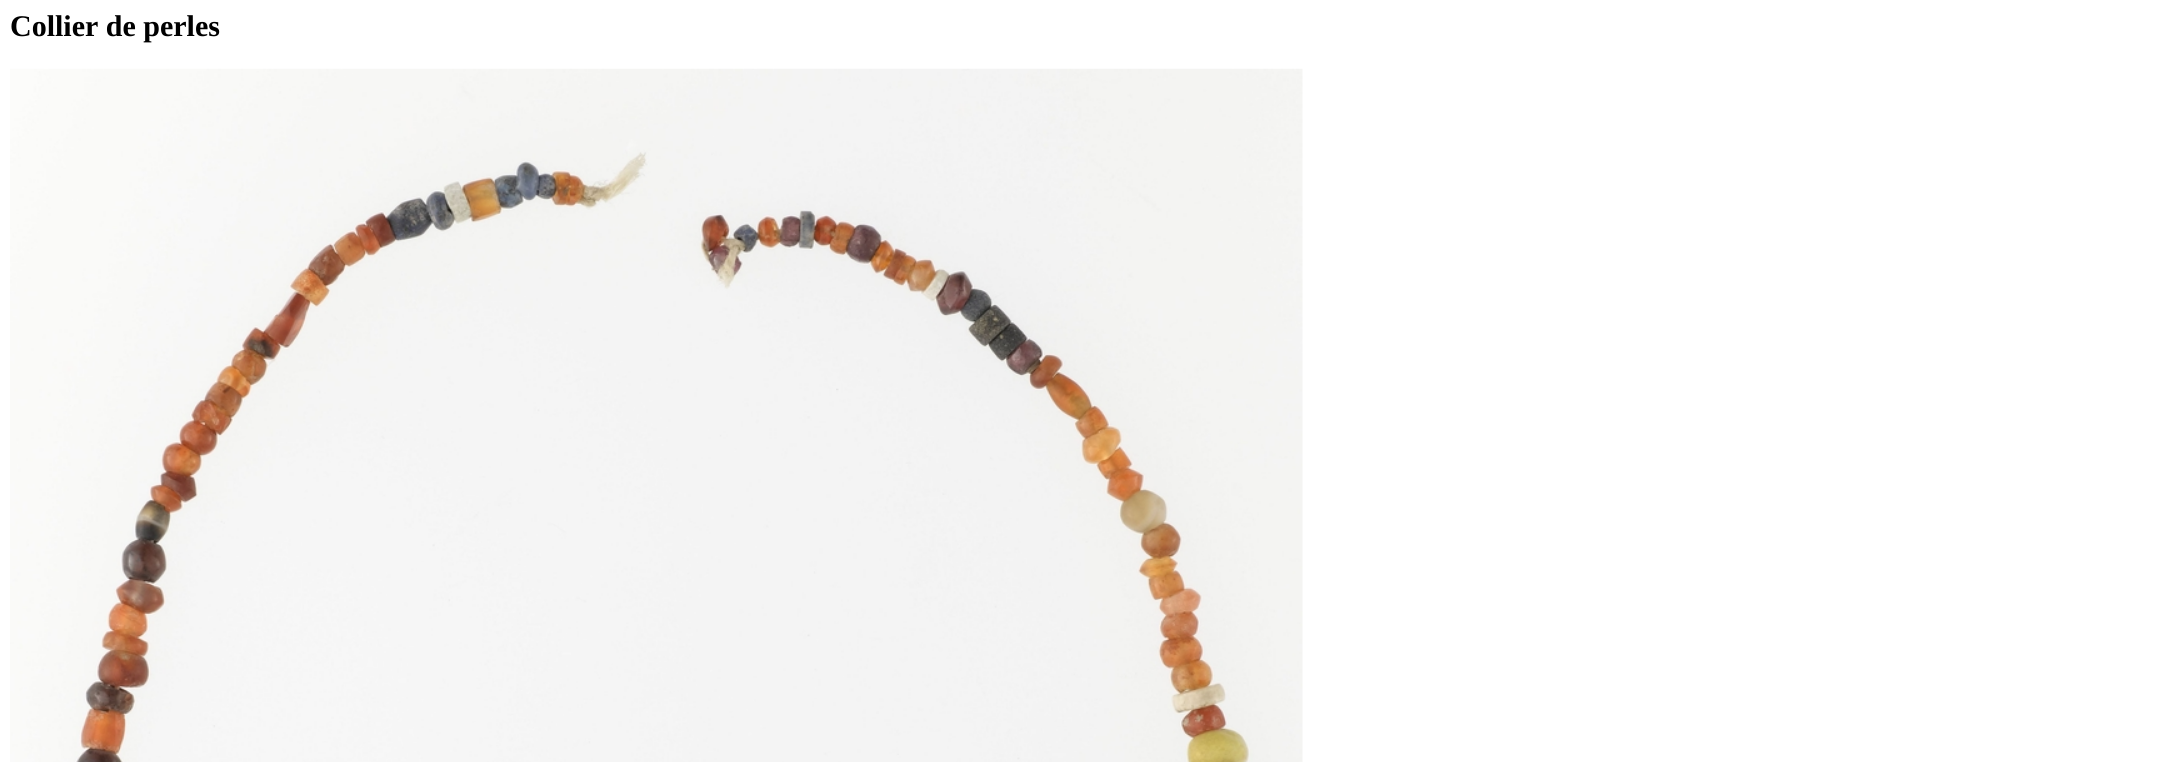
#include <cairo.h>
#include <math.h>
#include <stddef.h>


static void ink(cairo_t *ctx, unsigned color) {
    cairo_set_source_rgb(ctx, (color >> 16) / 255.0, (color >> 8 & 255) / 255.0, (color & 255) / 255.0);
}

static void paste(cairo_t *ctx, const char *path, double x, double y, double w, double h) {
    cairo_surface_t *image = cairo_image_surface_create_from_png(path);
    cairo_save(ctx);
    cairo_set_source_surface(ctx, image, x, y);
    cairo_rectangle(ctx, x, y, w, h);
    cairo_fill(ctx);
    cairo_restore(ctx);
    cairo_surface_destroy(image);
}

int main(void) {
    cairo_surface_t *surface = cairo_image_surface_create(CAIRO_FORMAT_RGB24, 2178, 762);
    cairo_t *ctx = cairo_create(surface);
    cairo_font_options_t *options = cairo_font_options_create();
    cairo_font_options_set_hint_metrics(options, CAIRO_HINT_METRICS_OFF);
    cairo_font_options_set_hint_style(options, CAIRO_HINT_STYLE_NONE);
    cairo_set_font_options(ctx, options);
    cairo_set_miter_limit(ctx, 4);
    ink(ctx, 0xFFFFFF);
    cairo_paint(ctx);
    cairo_select_font_face(ctx, "Liberation Serif", CAIRO_FONT_SLANT_NORMAL, CAIRO_FONT_WEIGHT_BOLD);
    cairo_set_font_size(ctx, 30);
    ink(ctx, 0x000000);
    cairo_move_to(ctx, 10, 36);
    cairo_show_text(ctx, "Collier de perles");
    paste(ctx, "media/1.png", 10, 68, 1293, 694);
    cairo_surface_write_to_png(surface, "image.png");
    cairo_font_options_destroy(options);
    cairo_destroy(ctx);
    cairo_surface_destroy(surface);
    return 0;
}
